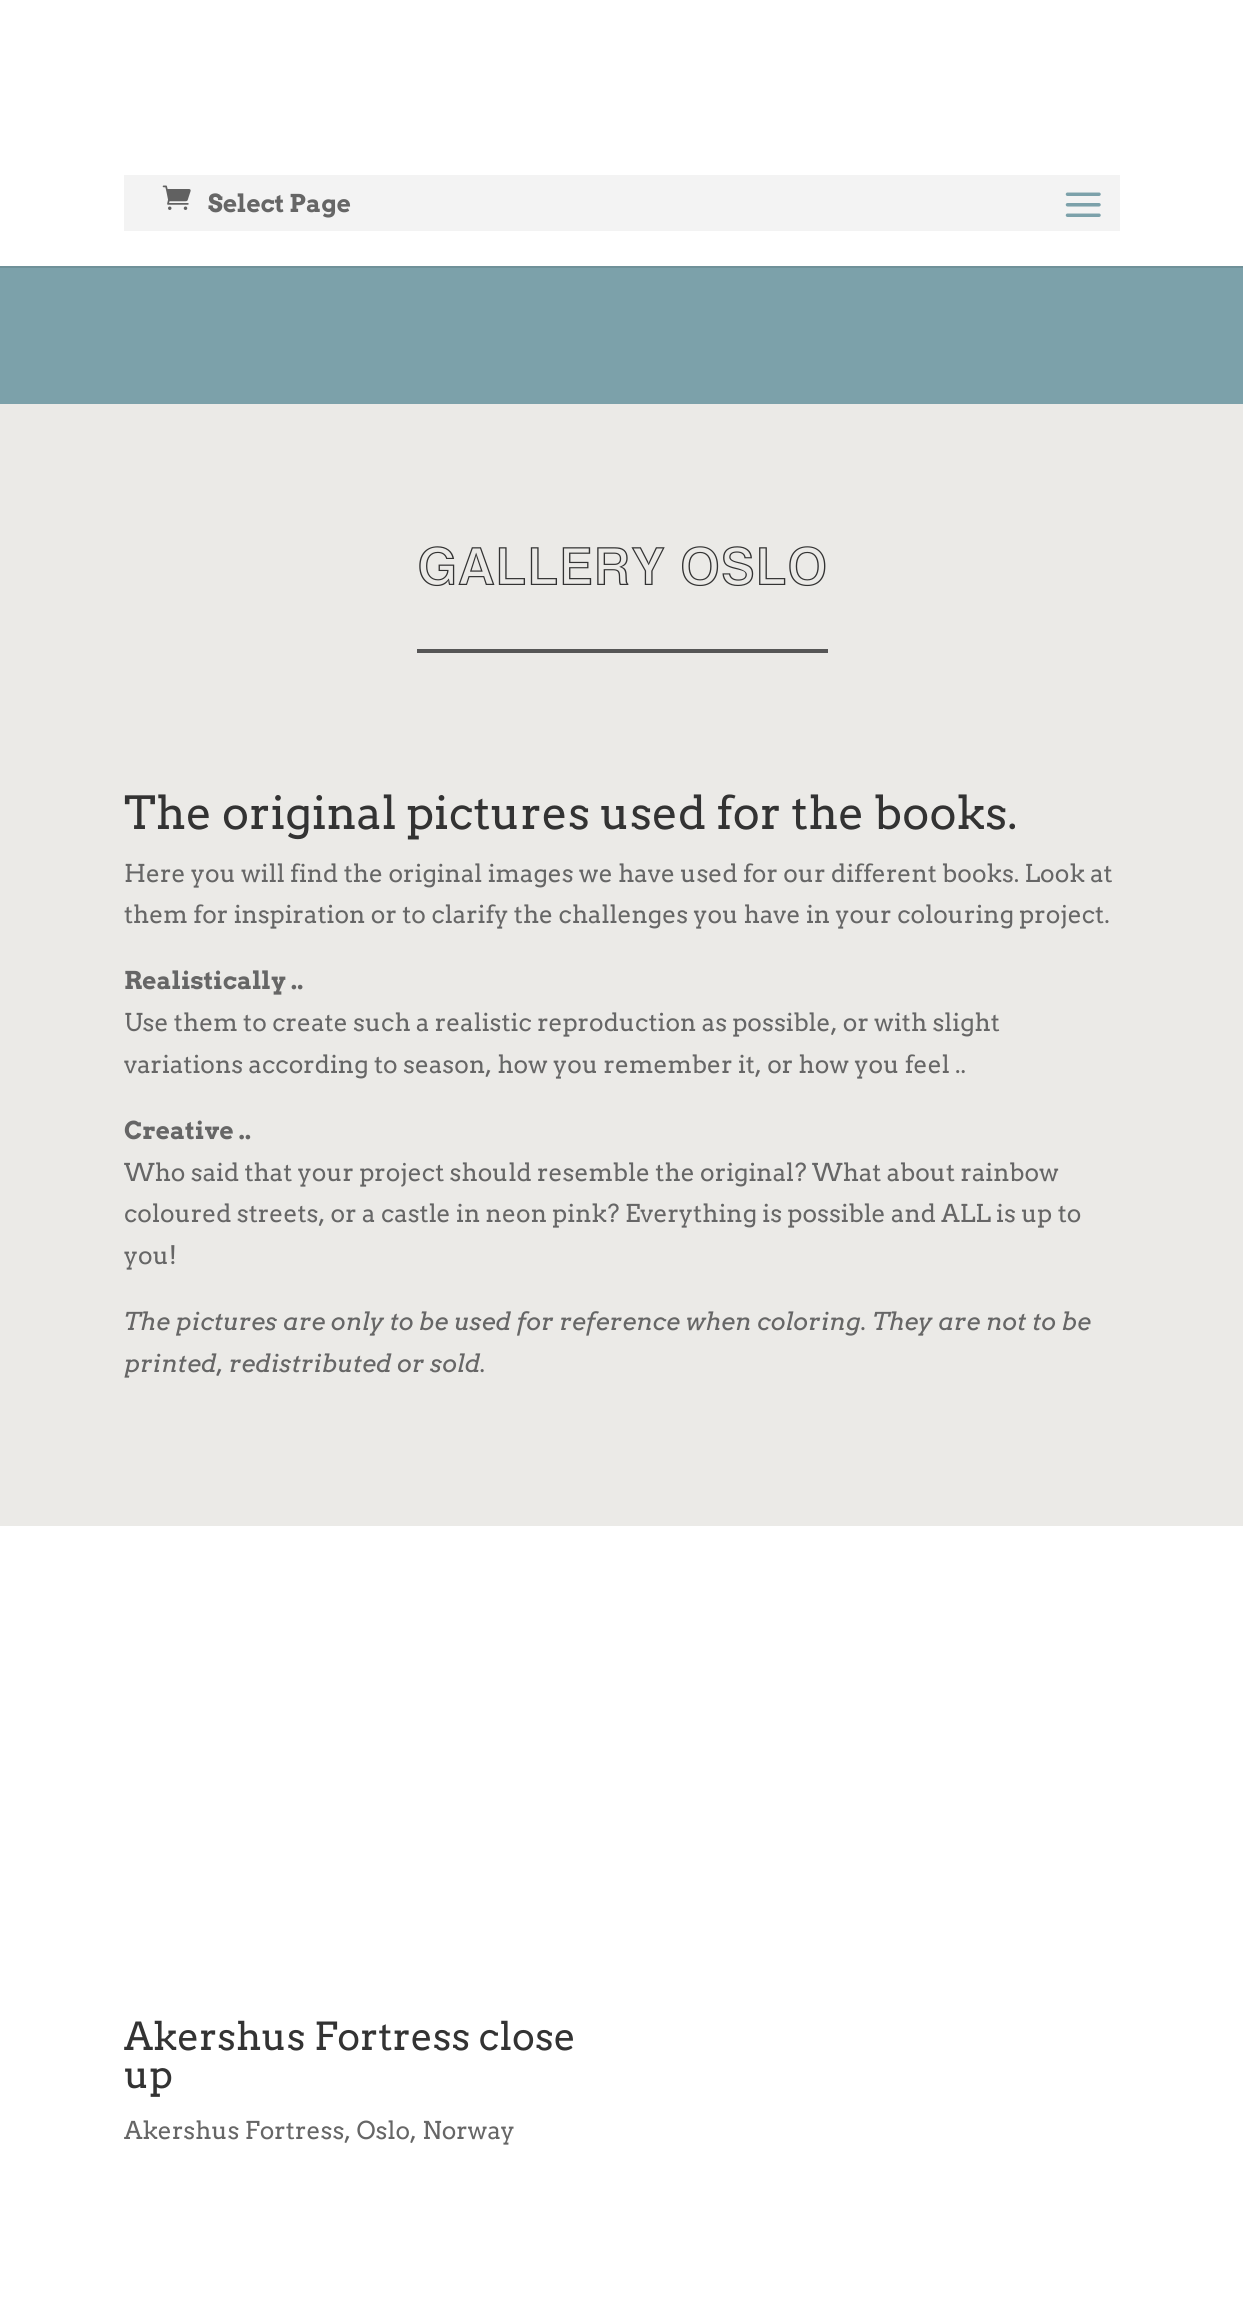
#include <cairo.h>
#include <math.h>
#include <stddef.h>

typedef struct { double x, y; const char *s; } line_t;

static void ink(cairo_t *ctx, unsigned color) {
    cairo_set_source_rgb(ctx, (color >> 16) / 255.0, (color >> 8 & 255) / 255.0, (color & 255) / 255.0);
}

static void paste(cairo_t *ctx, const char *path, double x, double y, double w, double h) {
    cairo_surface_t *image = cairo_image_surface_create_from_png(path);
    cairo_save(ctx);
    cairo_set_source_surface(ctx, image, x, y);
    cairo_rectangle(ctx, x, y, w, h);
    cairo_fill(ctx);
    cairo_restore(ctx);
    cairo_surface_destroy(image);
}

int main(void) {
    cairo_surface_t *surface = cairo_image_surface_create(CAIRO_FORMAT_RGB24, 1243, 2307);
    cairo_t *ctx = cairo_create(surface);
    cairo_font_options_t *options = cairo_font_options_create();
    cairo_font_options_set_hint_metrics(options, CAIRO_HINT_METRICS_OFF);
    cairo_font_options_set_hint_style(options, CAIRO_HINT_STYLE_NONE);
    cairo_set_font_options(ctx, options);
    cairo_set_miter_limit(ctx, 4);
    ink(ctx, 0xFFFFFF);
    cairo_paint(ctx);
    ink(ctx, 0x709199);
    cairo_rectangle(ctx, 0, 266, 1243, 2);
    cairo_fill(ctx);
    paste(ctx, "media/1.png", 162, 185, 29, 25);
    cairo_set_source_rgba(ctx, 0, 0, 0, 0.05);
    cairo_rectangle(ctx, 124, 175, 996, 56);
    cairo_fill(ctx);
    cairo_select_font_face(ctx, "Arvo", CAIRO_FONT_SLANT_NORMAL, CAIRO_FONT_WEIGHT_BOLD);
    cairo_set_font_size(ctx, 24.5);
    ink(ctx, 0x666666);
    cairo_move_to(ctx, 208, 212);
    cairo_show_text(ctx, "Select Page");
    paste(ctx, "media/2.png", 1065, 192, 36, 25);
    ink(ctx, 0xEBEAE7);
    cairo_rectangle(ctx, 0, 404, 1243, 1122);
    cairo_fill(ctx);
    ink(ctx, 0x7CA1AA);
    cairo_rectangle(ctx, 0, 268, 1243, 136);
    cairo_fill(ctx);
    cairo_select_font_face(ctx, "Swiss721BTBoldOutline", CAIRO_FONT_SLANT_NORMAL, CAIRO_FONT_WEIGHT_BOLD);
    cairo_set_font_size(ctx, 52.5);
    ink(ctx, 0x333333);
    cairo_move_to(ctx, 417, 585);
    cairo_show_text(ctx, "GALLERY OSLO");
    ink(ctx, 0x565656);
    cairo_rectangle(ctx, 417, 649, 411, 4);
    cairo_fill(ctx);
    cairo_select_font_face(ctx, "Arvo", CAIRO_FONT_SLANT_NORMAL, CAIRO_FONT_WEIGHT_NORMAL);
    cairo_set_font_size(ctx, 45.5);
    ink(ctx, 0x333333);
    cairo_move_to(ctx, 124, 829);
    cairo_show_text(ctx, "The original pictures used for the books.");
    cairo_set_font_size(ctx, 24.5);
    ink(ctx, 0x666666);
    cairo_move_to(ctx, 124, 882);
    cairo_show_text(ctx, "Here you will find the original images we have used for our different books. Look at");
    cairo_move_to(ctx, 124, 923);
    cairo_show_text(ctx, "them for inspiration or to clarify the challenges you have in your colouring project.");
    cairo_select_font_face(ctx, "Arvo", CAIRO_FONT_SLANT_NORMAL, CAIRO_FONT_WEIGHT_BOLD);
    cairo_move_to(ctx, 124, 989);
    cairo_show_text(ctx, "Realistically ..");
    cairo_select_font_face(ctx, "Arvo", CAIRO_FONT_SLANT_NORMAL, CAIRO_FONT_WEIGHT_NORMAL);
    cairo_move_to(ctx, 124, 1031);
    cairo_show_text(ctx, "Use them to create such a realistic reproduction as possible, or with slight");
    cairo_move_to(ctx, 124, 1073);
    cairo_show_text(ctx, "variations according to season, how you remember it, or how you feel ..");
    cairo_select_font_face(ctx, "Arvo", CAIRO_FONT_SLANT_NORMAL, CAIRO_FONT_WEIGHT_BOLD);
    cairo_move_to(ctx, 124, 1139);
    cairo_show_text(ctx, "Creative ..");
    cairo_select_font_face(ctx, "Arvo", CAIRO_FONT_SLANT_NORMAL, CAIRO_FONT_WEIGHT_NORMAL);
    {
        static const line_t items[] = {
            {124, 1181, "Who said that your project should resemble the original? What about rainbow"},
            {124, 1222, "coloured streets, or a castle in neon pink? Everything is possible and ALL is up to"},
            {124, 1264, "you!"},
        };
        for (size_t i = 0; i < sizeof items / sizeof *items; i++) {
            cairo_move_to(ctx, items[i].x, items[i].y);
            cairo_show_text(ctx, items[i].s);
        }
    }
    cairo_select_font_face(ctx, "Arvo", CAIRO_FONT_SLANT_ITALIC, CAIRO_FONT_WEIGHT_NORMAL);
    cairo_move_to(ctx, 124, 1330);
    cairo_show_text(ctx, "The pictures are only to be used for reference when coloring. They are not to be");
    cairo_move_to(ctx, 124, 1372);
    cairo_show_text(ctx, "printed, redistributed or sold.");
    cairo_select_font_face(ctx, "Arvo", CAIRO_FONT_SLANT_NORMAL, CAIRO_FONT_WEIGHT_NORMAL);
    cairo_set_font_size(ctx, 38.5);
    ink(ctx, 0x333333);
    cairo_move_to(ctx, 124, 2050);
    cairo_show_text(ctx, "Akershus Fortress close");
    cairo_move_to(ctx, 124, 2088);
    cairo_show_text(ctx, "up");
    cairo_set_font_size(ctx, 24.5);
    ink(ctx, 0x666666);
    cairo_move_to(ctx, 124, 2139);
    cairo_show_text(ctx, "Akershus Fortress, Oslo, Norway");
    cairo_surface_write_to_png(surface, "image.png");
    cairo_font_options_destroy(options);
    cairo_destroy(ctx);
    cairo_surface_destroy(surface);
    return 0;
}
